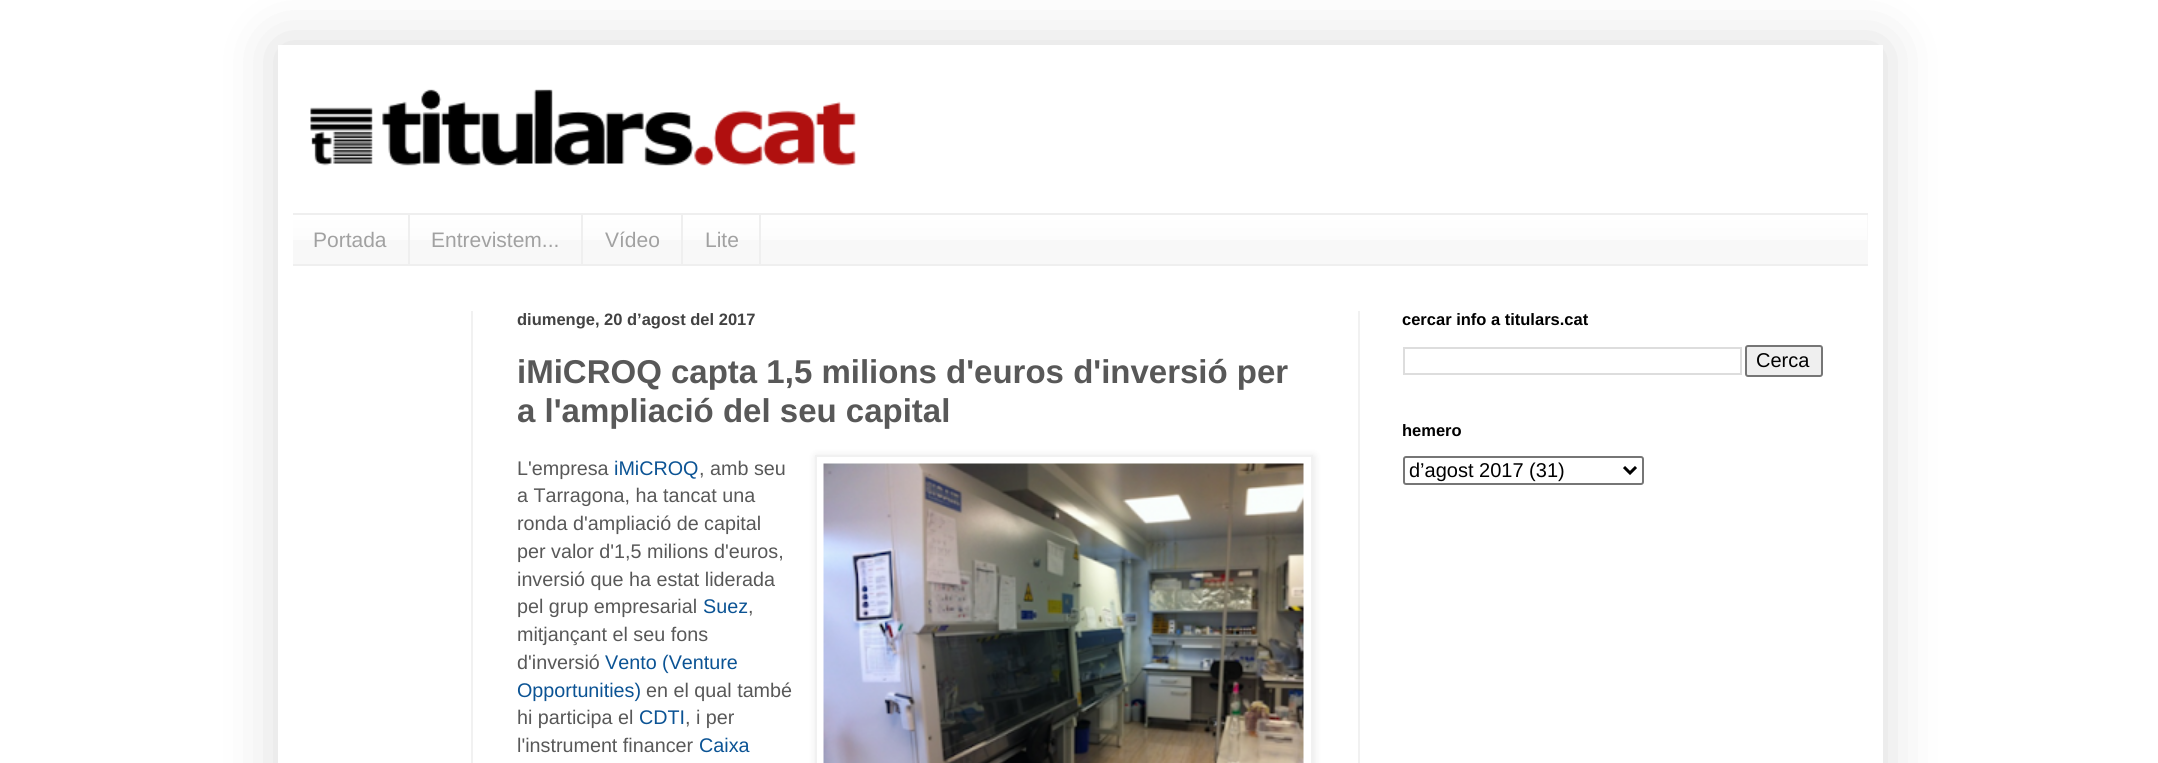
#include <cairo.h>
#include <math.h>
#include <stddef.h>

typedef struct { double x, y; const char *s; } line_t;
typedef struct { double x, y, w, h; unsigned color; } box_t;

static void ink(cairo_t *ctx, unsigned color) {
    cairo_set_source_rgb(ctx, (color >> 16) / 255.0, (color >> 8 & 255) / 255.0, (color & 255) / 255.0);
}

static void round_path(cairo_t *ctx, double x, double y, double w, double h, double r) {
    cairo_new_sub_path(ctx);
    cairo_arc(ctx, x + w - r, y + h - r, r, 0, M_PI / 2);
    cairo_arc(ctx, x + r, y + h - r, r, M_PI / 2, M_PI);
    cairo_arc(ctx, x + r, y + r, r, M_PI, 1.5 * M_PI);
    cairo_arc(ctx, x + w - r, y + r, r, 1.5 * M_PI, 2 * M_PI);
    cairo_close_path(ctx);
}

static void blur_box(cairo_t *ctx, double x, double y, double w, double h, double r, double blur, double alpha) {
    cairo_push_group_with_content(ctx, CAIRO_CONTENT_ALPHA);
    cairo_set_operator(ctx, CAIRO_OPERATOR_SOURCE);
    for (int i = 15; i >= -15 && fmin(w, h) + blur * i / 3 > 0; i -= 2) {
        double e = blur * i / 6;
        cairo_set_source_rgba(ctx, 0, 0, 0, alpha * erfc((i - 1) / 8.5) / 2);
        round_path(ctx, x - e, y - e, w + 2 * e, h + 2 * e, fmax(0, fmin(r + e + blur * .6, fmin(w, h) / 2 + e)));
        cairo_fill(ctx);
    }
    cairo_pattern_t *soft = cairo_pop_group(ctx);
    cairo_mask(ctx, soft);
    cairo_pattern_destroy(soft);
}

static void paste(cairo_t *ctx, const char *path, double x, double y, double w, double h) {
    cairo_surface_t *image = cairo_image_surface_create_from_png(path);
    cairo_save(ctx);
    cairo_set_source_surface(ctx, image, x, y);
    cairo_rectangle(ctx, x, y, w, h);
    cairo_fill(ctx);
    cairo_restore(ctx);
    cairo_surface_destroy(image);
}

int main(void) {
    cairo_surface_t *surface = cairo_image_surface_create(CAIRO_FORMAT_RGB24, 2158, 763);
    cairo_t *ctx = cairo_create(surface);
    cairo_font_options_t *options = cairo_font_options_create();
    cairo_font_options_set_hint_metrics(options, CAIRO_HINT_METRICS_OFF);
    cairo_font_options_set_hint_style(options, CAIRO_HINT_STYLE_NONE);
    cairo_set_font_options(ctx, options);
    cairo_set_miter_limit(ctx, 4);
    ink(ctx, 0xFFFFFF);
    cairo_paint(ctx);
    cairo_save(ctx);
    cairo_set_fill_rule(ctx, CAIRO_FILL_RULE_EVEN_ODD);
    cairo_new_path(ctx);
    cairo_move_to(ctx, 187, 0);
    cairo_line_to(ctx, 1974, 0);
    cairo_line_to(ctx, 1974, 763);
    cairo_line_to(ctx, 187, 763);
    cairo_close_path(ctx);
    cairo_move_to(ctx, 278, 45);
    cairo_line_to(ctx, 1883, 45);
    cairo_line_to(ctx, 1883, 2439);
    cairo_line_to(ctx, 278, 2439);
    cairo_close_path(ctx);
    cairo_clip(ctx);
    ink(ctx, 0x000000);
    blur_box(ctx, 278, 45, 1605, 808, 0, 30, 0.15);
    cairo_restore(ctx);
    paste(ctx, "media/1.png", 310, 89, 546, 77);
    ink(ctx, 0xF8F8F8);
    cairo_rectangle(ctx, 293, 215, 1575, 49);
    cairo_fill(ctx);
    paste(ctx, "media/2.png", 293, 215, 1574, 25);
    {
        static const box_t items[] = {
            {293, 213, 1575, 2, 0xEFEFEF},
            {293, 264, 1575, 2, 0xEFEFEF},
            {408, 215, 2, 49, 0xEFEFEF},
        };
        for (size_t i = 0; i < sizeof items / sizeof *items; i++) {
            ink(ctx, items[i].color);
            cairo_rectangle(ctx, items[i].x, items[i].y, items[i].w, items[i].h);
            cairo_fill(ctx);
        }
    }
    cairo_select_font_face(ctx, "Liberation Sans", CAIRO_FONT_SLANT_NORMAL, CAIRO_FONT_WEIGHT_NORMAL);
    cairo_set_font_size(ctx, 21);
    ink(ctx, 0xA1A1A1);
    cairo_move_to(ctx, 313, 247);
    cairo_show_text(ctx, "Portada");
    ink(ctx, 0xEFEFEF);
    cairo_rectangle(ctx, 581, 215, 2, 49);
    cairo_fill(ctx);
    ink(ctx, 0xA1A1A1);
    cairo_move_to(ctx, 431, 247);
    cairo_show_text(ctx, "Entrevistem...");
    ink(ctx, 0xEFEFEF);
    cairo_rectangle(ctx, 681, 215, 2, 49);
    cairo_fill(ctx);
    ink(ctx, 0xA1A1A1);
    cairo_move_to(ctx, 605, 247);
    cairo_show_text(ctx, "Vídeo");
    ink(ctx, 0xEFEFEF);
    cairo_rectangle(ctx, 759, 215, 2, 49);
    cairo_fill(ctx);
    ink(ctx, 0xA1A1A1);
    cairo_move_to(ctx, 705, 247);
    cairo_show_text(ctx, "Lite");
    ink(ctx, 0xF1F1F1);
    cairo_rectangle(ctx, 471, 311, 2, 452);
    cairo_fill(ctx);
    cairo_rectangle(ctx, 1358, 311, 2, 452);
    cairo_fill(ctx);
    cairo_select_font_face(ctx, "Liberation Sans", CAIRO_FONT_SLANT_NORMAL, CAIRO_FONT_WEIGHT_BOLD);
    cairo_set_font_size(ctx, 16.5);
    ink(ctx, 0x424242);
    cairo_move_to(ctx, 517, 325);
    cairo_show_text(ctx, "diumenge, 20 d’agost del 2017");
    cairo_set_font_size(ctx, 33);
    ink(ctx, 0x585858);
    cairo_move_to(ctx, 517, 383);
    cairo_show_text(ctx, "iMiCROQ capta 1,5 milions d'euros d'inversió per");
    cairo_move_to(ctx, 517, 422);
    cairo_show_text(ctx, "a l'ampliació del seu capital");
    cairo_select_font_face(ctx, "Liberation Sans", CAIRO_FONT_SLANT_NORMAL, CAIRO_FONT_WEIGHT_NORMAL);
    cairo_set_font_size(ctx, 19.75);
    cairo_move_to(ctx, 517, 475);
    cairo_show_text(ctx, "L'empresa");
    ink(ctx, 0x0B5394);
    cairo_move_to(ctx, 614, 475);
    cairo_show_text(ctx, "iMiCROQ");
    ink(ctx, 0x585858);
    cairo_move_to(ctx, 699, 475);
    cairo_show_text(ctx, ", amb seu");
    ink(ctx, 0x000000);
    blur_box(ctx, 816, 456, 498, 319, 0, 4, 0.1);
    ink(ctx, 0xFFFFFF);
    cairo_rectangle(ctx, 816, 456, 496, 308);
    cairo_fill_preserve(ctx);
    ink(ctx, 0xF1F1F1);
    cairo_stroke(ctx);
    paste(ctx, "media/3.png", 823, 463, 481, 300);
    ink(ctx, 0x585858);
    {
        static const line_t items[] = {
            {517, 502, "a Tarragona, ha tancat una"},
            {517, 530, "ronda d'ampliació de capital"},
            {517, 558, "per valor d'1,5 milions d'euros,"},
            {517, 586, "inversió que ha estat liderada"},
            {517, 613, "pel grup empresarial"},
        };
        for (size_t i = 0; i < sizeof items / sizeof *items; i++) {
            cairo_move_to(ctx, items[i].x, items[i].y);
            cairo_show_text(ctx, items[i].s);
        }
    }
    ink(ctx, 0x0B5394);
    cairo_move_to(ctx, 703, 613);
    cairo_show_text(ctx, "Suez");
    ink(ctx, 0x585858);
    {
        static const line_t items[] = {
            {748, 613, ","},
            {517, 641, "mitjançant el seu fons"},
            {517, 669, "d'inversió"},
        };
        for (size_t i = 0; i < sizeof items / sizeof *items; i++) {
            cairo_move_to(ctx, items[i].x, items[i].y);
            cairo_show_text(ctx, items[i].s);
        }
    }
    ink(ctx, 0x0B5394);
    cairo_move_to(ctx, 605, 669);
    cairo_show_text(ctx, "Vento (Venture");
    cairo_move_to(ctx, 517, 697);
    cairo_show_text(ctx, "Opportunities)");
    ink(ctx, 0x585858);
    cairo_move_to(ctx, 646, 697);
    cairo_show_text(ctx, "en el qual també");
    cairo_move_to(ctx, 517, 724);
    cairo_show_text(ctx, "hi participa el");
    ink(ctx, 0x0B5394);
    cairo_move_to(ctx, 639, 724);
    cairo_show_text(ctx, "CDTI");
    ink(ctx, 0x585858);
    cairo_move_to(ctx, 685, 724);
    cairo_show_text(ctx, ", i per");
    cairo_move_to(ctx, 517, 752);
    cairo_show_text(ctx, "l'instrument financer");
    ink(ctx, 0x0B5394);
    cairo_move_to(ctx, 699, 752);
    cairo_show_text(ctx, "Caixa");
    cairo_select_font_face(ctx, "Liberation Sans", CAIRO_FONT_SLANT_NORMAL, CAIRO_FONT_WEIGHT_BOLD);
    cairo_set_font_size(ctx, 16.5);
    ink(ctx, 0x000000);
    cairo_move_to(ctx, 1402, 325);
    cairo_show_text(ctx, "cercar info a titulars.cat");
    cairo_rectangle(ctx, 1404, 348, 337, 26);
    ink(ctx, 0xDDDDDD);
    cairo_stroke(ctx);
    ink(ctx, 0xEFEFEF);
    round_path(ctx, 1746, 346, 76, 30, 2);
    cairo_fill_preserve(ctx);
    ink(ctx, 0x767676);
    cairo_stroke(ctx);
    cairo_select_font_face(ctx, "Liberation Sans", CAIRO_FONT_SLANT_NORMAL, CAIRO_FONT_WEIGHT_NORMAL);
    cairo_set_font_size(ctx, 20);
    ink(ctx, 0x000000);
    cairo_move_to(ctx, 1756, 367);
    cairo_show_text(ctx, "Cerca");
    cairo_select_font_face(ctx, "Liberation Sans", CAIRO_FONT_SLANT_NORMAL, CAIRO_FONT_WEIGHT_BOLD);
    cairo_set_font_size(ctx, 16.5);
    cairo_move_to(ctx, 1402, 436);
    cairo_show_text(ctx, "hemero");
    round_path(ctx, 1404, 457, 239, 27, 2);
    ink(ctx, 0x767676);
    cairo_stroke(ctx);
    cairo_new_path(ctx);
    cairo_move_to(ctx, 1624, 467);
    cairo_line_to(ctx, 1630, 473);
    cairo_line_to(ctx, 1636, 467);
    ink(ctx, 0x000000);
    cairo_set_line_width(ctx, 3);
    cairo_stroke(ctx);
    cairo_select_font_face(ctx, "Liberation Sans", CAIRO_FONT_SLANT_NORMAL, CAIRO_FONT_WEIGHT_NORMAL);
    cairo_set_font_size(ctx, 20);
    cairo_move_to(ctx, 1409, 477);
    cairo_show_text(ctx, "d’agost 2017 (31)");
    cairo_surface_write_to_png(surface, "image.png");
    cairo_font_options_destroy(options);
    cairo_destroy(ctx);
    cairo_surface_destroy(surface);
    return 0;
}
